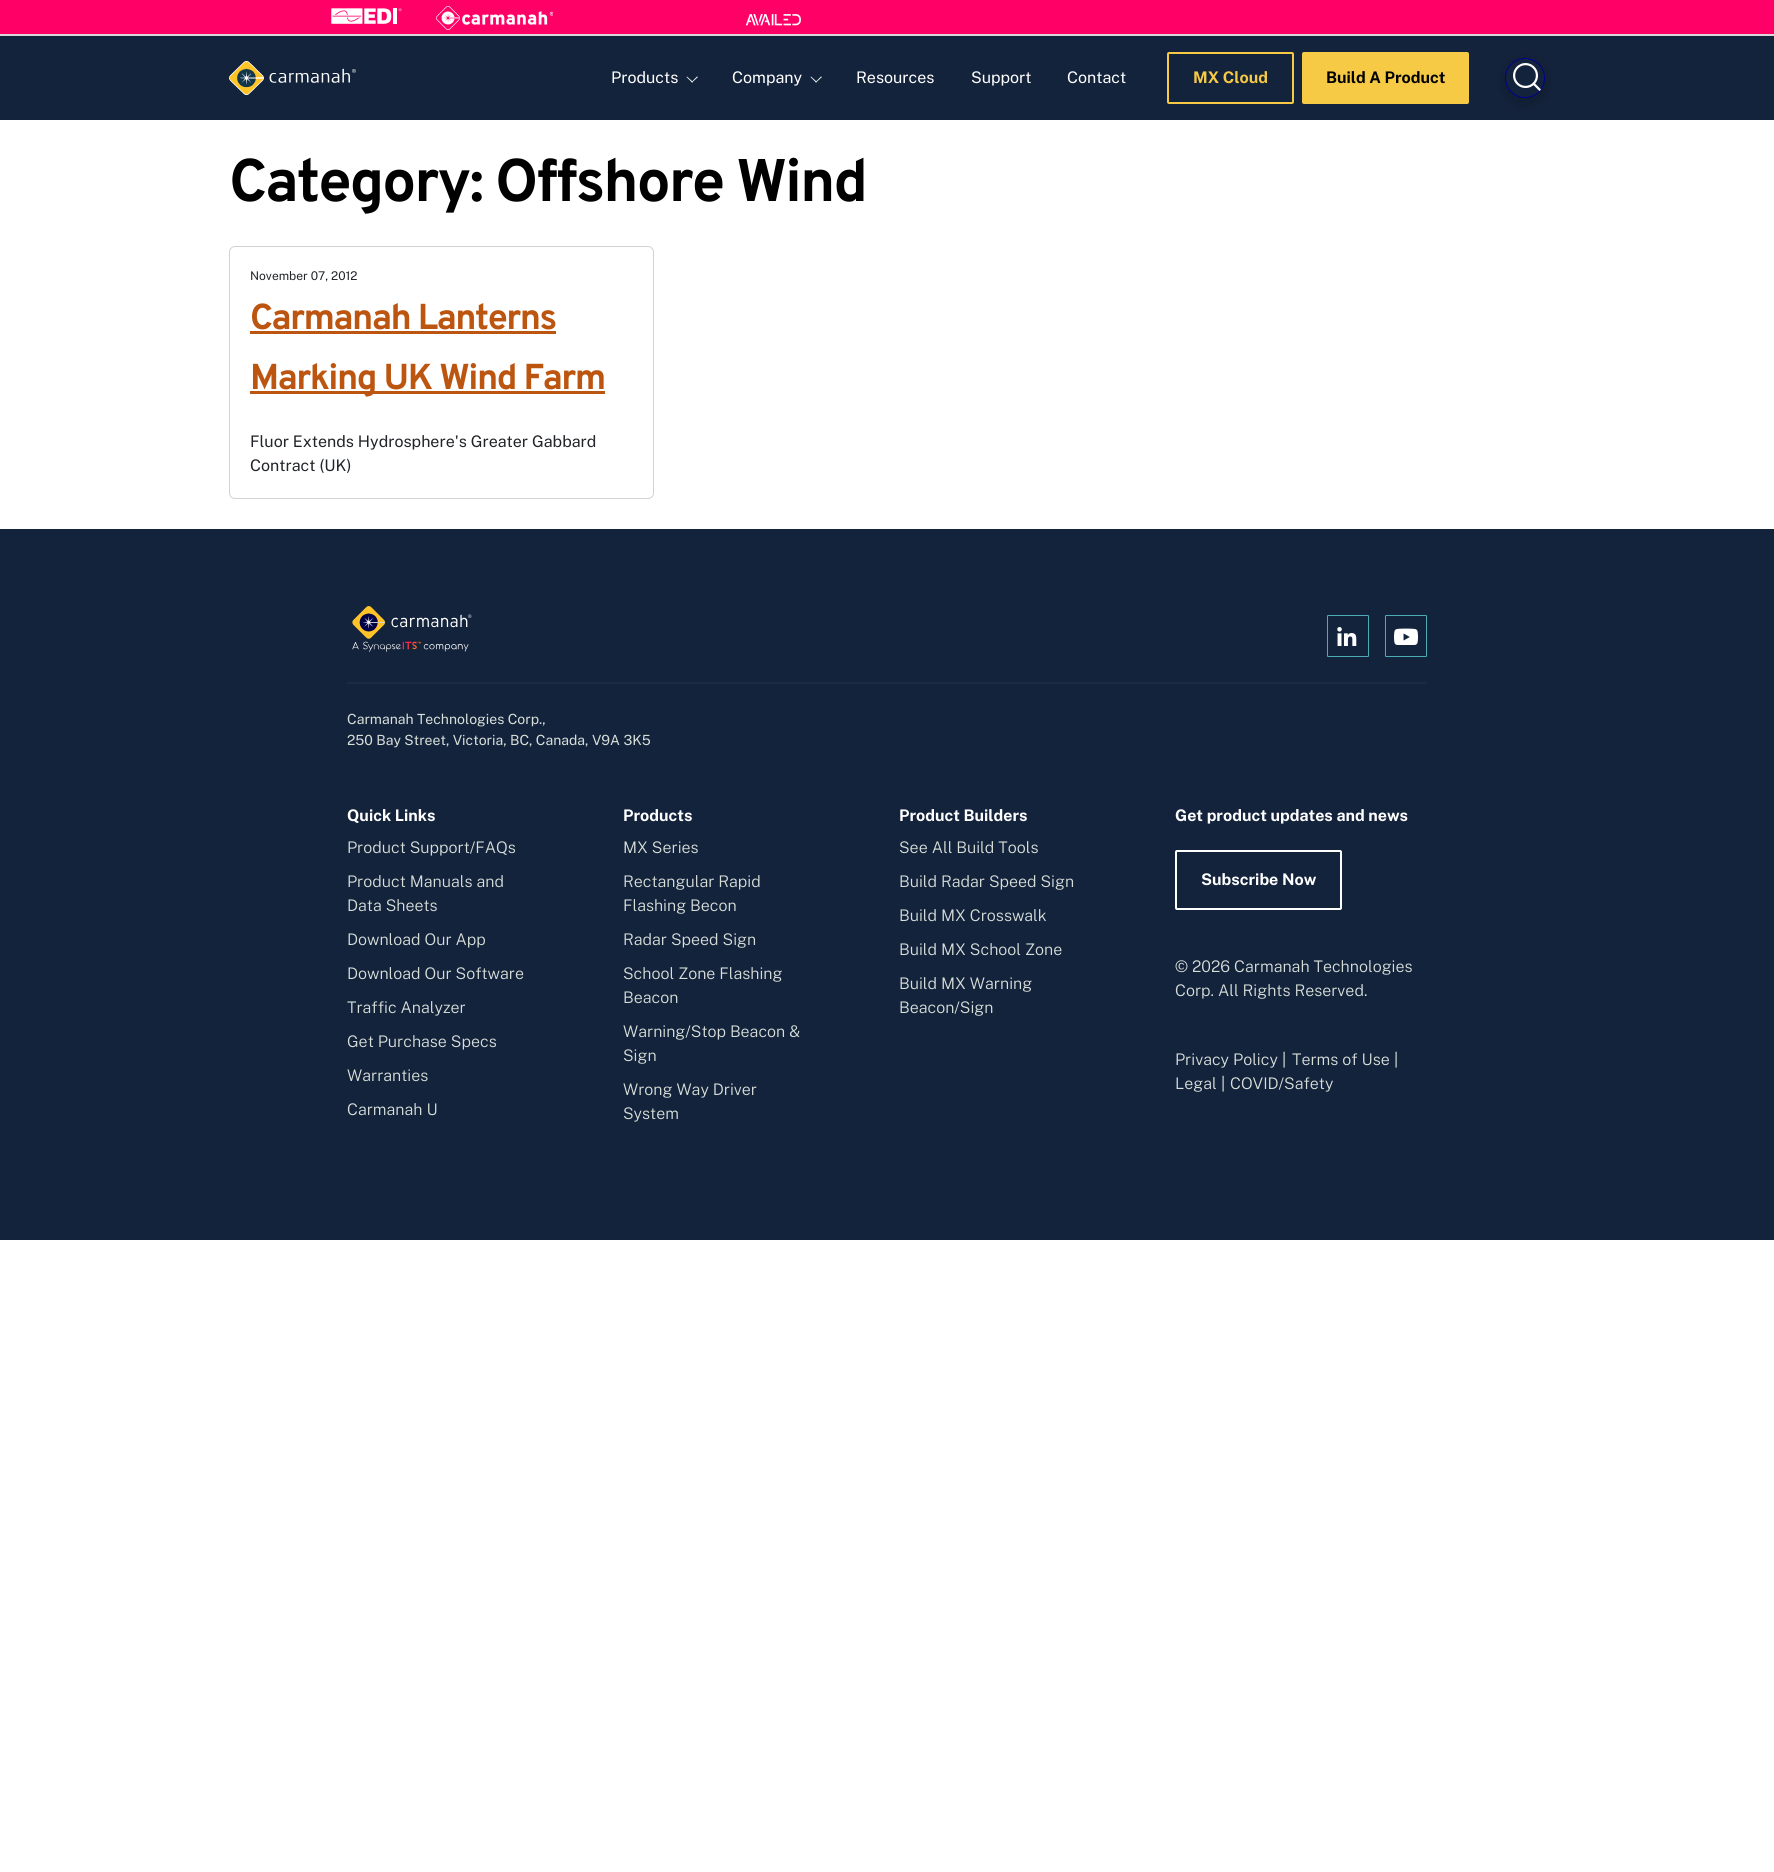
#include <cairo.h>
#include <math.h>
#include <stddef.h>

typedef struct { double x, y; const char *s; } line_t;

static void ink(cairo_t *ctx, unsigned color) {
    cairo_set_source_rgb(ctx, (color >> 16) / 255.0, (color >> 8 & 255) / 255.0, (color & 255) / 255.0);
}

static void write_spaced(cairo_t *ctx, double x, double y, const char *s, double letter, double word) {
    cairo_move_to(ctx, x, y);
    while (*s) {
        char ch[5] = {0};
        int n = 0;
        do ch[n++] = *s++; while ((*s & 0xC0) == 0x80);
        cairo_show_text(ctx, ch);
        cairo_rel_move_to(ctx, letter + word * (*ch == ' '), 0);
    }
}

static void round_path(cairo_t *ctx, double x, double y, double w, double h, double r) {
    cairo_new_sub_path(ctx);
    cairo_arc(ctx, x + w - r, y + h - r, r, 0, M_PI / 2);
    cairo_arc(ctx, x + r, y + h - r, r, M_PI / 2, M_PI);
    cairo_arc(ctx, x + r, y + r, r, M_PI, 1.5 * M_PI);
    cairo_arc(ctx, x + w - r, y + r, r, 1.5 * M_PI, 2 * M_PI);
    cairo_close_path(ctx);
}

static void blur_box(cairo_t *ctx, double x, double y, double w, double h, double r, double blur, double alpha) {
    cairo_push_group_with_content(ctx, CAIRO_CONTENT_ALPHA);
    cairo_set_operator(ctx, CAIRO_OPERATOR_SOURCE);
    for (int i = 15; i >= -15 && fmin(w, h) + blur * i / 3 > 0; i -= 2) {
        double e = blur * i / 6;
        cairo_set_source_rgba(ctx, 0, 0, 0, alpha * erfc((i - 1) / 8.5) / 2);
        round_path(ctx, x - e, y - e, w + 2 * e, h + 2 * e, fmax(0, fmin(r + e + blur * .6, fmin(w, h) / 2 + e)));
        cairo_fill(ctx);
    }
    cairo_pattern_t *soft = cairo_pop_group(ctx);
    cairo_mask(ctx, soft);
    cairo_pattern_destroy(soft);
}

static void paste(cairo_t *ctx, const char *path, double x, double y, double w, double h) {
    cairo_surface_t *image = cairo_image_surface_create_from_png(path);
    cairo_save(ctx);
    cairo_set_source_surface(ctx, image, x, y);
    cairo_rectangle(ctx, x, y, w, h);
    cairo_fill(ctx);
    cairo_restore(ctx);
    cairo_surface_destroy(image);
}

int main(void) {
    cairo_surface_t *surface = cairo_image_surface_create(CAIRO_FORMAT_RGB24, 1774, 1872);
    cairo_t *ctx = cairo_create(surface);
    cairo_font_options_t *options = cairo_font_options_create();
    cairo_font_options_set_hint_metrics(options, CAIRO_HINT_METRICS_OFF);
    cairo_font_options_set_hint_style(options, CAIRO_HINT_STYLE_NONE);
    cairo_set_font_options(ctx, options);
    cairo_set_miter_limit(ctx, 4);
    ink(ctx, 0xFFFFFF);
    cairo_paint(ctx);
    ink(ctx, 0xFF0066);
    cairo_rectangle(ctx, 0, 0, 1774, 34);
    cairo_fill(ctx);
    ink(ctx, 0xD8D8D8);
    cairo_rectangle(ctx, 0, 34, 1774, 2);
    cairo_fill(ctx);
    paste(ctx, "media/1.png", 331, 8, 71, 16);
    paste(ctx, "media/2.png", 436, 6, 117, 24);
    paste(ctx, "media/3.png", 745, 14, 56, 12);
    ink(ctx, 0x14233C);
    cairo_rectangle(ctx, 0, 36, 1774, 84);
    cairo_fill(ctx);
    paste(ctx, "media/4.png", 229, 61, 127, 34);
    cairo_select_font_face(ctx, "Public Sans", CAIRO_FONT_SLANT_NORMAL, CAIRO_FONT_WEIGHT_NORMAL);
    cairo_set_font_size(ctx, 16);
    ink(ctx, 0xFFFFFF);
    cairo_move_to(ctx, 611, 83);
    cairo_show_text(ctx, "Products");
    ink(ctx, 0xF4F6F4);
    cairo_new_path(ctx);
    cairo_move_to(ctx, 691.5, 82);
    cairo_line_to(ctx, 697, 76.5);
    cairo_line_to(ctx, 698, 77);
    cairo_line_to(ctx, 692, 82.5);
    cairo_close_path(ctx);
    cairo_fill(ctx);
    cairo_new_path(ctx);
    cairo_move_to(ctx, 686.5, 77);
    cairo_line_to(ctx, 687, 76.5);
    cairo_line_to(ctx, 693, 82);
    cairo_line_to(ctx, 692, 82.5);
    cairo_close_path(ctx);
    cairo_fill(ctx);
    ink(ctx, 0xFFFFFF);
    cairo_move_to(ctx, 732, 83);
    cairo_show_text(ctx, "Company");
    ink(ctx, 0xF4F6F4);
    cairo_new_path(ctx);
    cairo_move_to(ctx, 815.5, 82);
    cairo_line_to(ctx, 821, 76.5);
    cairo_line_to(ctx, 822, 77);
    cairo_line_to(ctx, 816, 82.5);
    cairo_close_path(ctx);
    cairo_fill(ctx);
    cairo_new_path(ctx);
    cairo_move_to(ctx, 810.5, 77);
    cairo_line_to(ctx, 811, 76.5);
    cairo_line_to(ctx, 817, 82);
    cairo_line_to(ctx, 816, 82.5);
    cairo_close_path(ctx);
    cairo_fill(ctx);
    ink(ctx, 0xFFFFFF);
    {
        static const line_t items[] = {
            {856, 83, "Resources"},
            {971, 83, "Support"},
            {1067, 83, "Contact"},
        };
        for (size_t i = 0; i < sizeof items / sizeof *items; i++) {
            cairo_move_to(ctx, items[i].x, items[i].y);
            cairo_show_text(ctx, items[i].s);
        }
    }
    round_path(ctx, 1168, 53, 125, 50, 1);
    ink(ctx, 0xF6CA45);
    cairo_stroke(ctx);
    cairo_select_font_face(ctx, "Public Sans", CAIRO_FONT_SLANT_NORMAL, CAIRO_FONT_WEIGHT_BOLD);
    cairo_move_to(ctx, 1193, 83);
    cairo_show_text(ctx, "MX Cloud");
    round_path(ctx, 1302, 52, 167, 52, 2);
    cairo_fill(ctx);
    ink(ctx, 0x000000);
    cairo_move_to(ctx, 1326, 83);
    cairo_show_text(ctx, "Build A Product");
    ink(ctx, 0x000000);
    blur_box(ctx, 1505, 62, 40, 40, 20, 7, 0.25);
    ink(ctx, 0x14233C);
    cairo_arc(ctx, 1525, 78, 19.5, 0, 2 * M_PI);
    cairo_fill_preserve(ctx);
    ink(ctx, 0x000092);
    cairo_set_line_width(ctx, 1);
    cairo_stroke(ctx);
    paste(ctx, "media/5.png", 1513, 63, 28, 28);
    cairo_select_font_face(ctx, "Overpass", CAIRO_FONT_SLANT_NORMAL, CAIRO_FONT_WEIGHT_BOLD);
    cairo_set_font_size(ctx, 60);
    ink(ctx, 0x000000);
    write_spaced(ctx, 229, 201, "Category: Offshore Wind", -2, 0);
    round_path(ctx, 229.5, 246.5, 424, 252, 5.5);
    ink(ctx, 0xD2D2D2);
    cairo_stroke(ctx);
    cairo_select_font_face(ctx, "Public Sans", CAIRO_FONT_SLANT_NORMAL, CAIRO_FONT_WEIGHT_NORMAL);
    cairo_set_font_size(ctx, 12);
    ink(ctx, 0x212529);
    cairo_move_to(ctx, 250, 280);
    cairo_show_text(ctx, "November 07, 2012");
    cairo_select_font_face(ctx, "Overpass", CAIRO_FONT_SLANT_NORMAL, CAIRO_FONT_WEIGHT_BOLD);
    cairo_set_font_size(ctx, 36);
    ink(ctx, 0xBC5510);
    write_spaced(ctx, 250, 329, "Carmanah Lanterns", -1.5, 0);
    cairo_rectangle(ctx, 250, 331, 306, 3);
    cairo_fill(ctx);
    cairo_rectangle(ctx, 250, 391, 355, 3);
    cairo_fill(ctx);
    write_spaced(ctx, 250, 389, "Marking UK Wind Farm", -1.5, 0);
    cairo_select_font_face(ctx, "Public Sans", CAIRO_FONT_SLANT_NORMAL, CAIRO_FONT_WEIGHT_NORMAL);
    cairo_set_font_size(ctx, 16);
    ink(ctx, 0x212529);
    cairo_move_to(ctx, 250, 447);
    cairo_show_text(ctx, "Fluor Extends Hydrosphere's Greater Gabbard");
    cairo_move_to(ctx, 250, 471);
    cairo_show_text(ctx, "Contract (UK)");
    ink(ctx, 0x14233C);
    cairo_rectangle(ctx, 0, 529, 1774, 711);
    cairo_fill(ctx);
    ink(ctx, 0x1D2A46);
    cairo_rectangle(ctx, 347, 682, 1080, 2);
    cairo_fill(ctx);
    paste(ctx, "media/6.png", 352, 606, 120, 46);
    paste(ctx, "media/7.png", 1337, 627, 20, 19);
    round_path(ctx, 1327.5, 615.5, 41, 41, 0.5);
    ink(ctx, 0x4DABB7);
    cairo_stroke(ctx);
    paste(ctx, "media/8.png", 1394, 628, 24, 17);
    round_path(ctx, 1385.5, 615.5, 41, 41, 0.5);
    cairo_stroke(ctx);
    cairo_set_font_size(ctx, 14);
    ink(ctx, 0xD8DFD9);
    cairo_move_to(ctx, 347, 724);
    cairo_show_text(ctx, "Carmanah Technologies Corp.,");
    cairo_move_to(ctx, 347, 745);
    cairo_show_text(ctx, "250 Bay Street, Victoria, BC, Canada, V9A 3K5");
    cairo_select_font_face(ctx, "Public Sans", CAIRO_FONT_SLANT_NORMAL, CAIRO_FONT_WEIGHT_BOLD);
    cairo_set_font_size(ctx, 16);
    ink(ctx, 0xFFFFFF);
    cairo_move_to(ctx, 347, 821);
    cairo_show_text(ctx, "Quick Links");
    cairo_select_font_face(ctx, "Public Sans Light", CAIRO_FONT_SLANT_NORMAL, CAIRO_FONT_WEIGHT_NORMAL);
    ink(ctx, 0xD8DFD9);
    {
        static const line_t items[] = {
            {347, 853, "Product Support/FAQs"},
            {347, 887, "Product Manuals and"},
            {347, 911, "Data Sheets"},
            {347, 945, "Download Our App"},
            {347, 979, "Download Our Software"},
            {347, 1013, "Traffic Analyzer"},
            {347, 1047, "Get Purchase Specs"},
            {347, 1081, "Warranties"},
            {347, 1115, "Carmanah U"},
        };
        for (size_t i = 0; i < sizeof items / sizeof *items; i++) {
            cairo_move_to(ctx, items[i].x, items[i].y);
            cairo_show_text(ctx, items[i].s);
        }
    }
    cairo_select_font_face(ctx, "Public Sans", CAIRO_FONT_SLANT_NORMAL, CAIRO_FONT_WEIGHT_BOLD);
    ink(ctx, 0xFFFFFF);
    cairo_move_to(ctx, 623, 821);
    cairo_show_text(ctx, "Products");
    cairo_select_font_face(ctx, "Public Sans Light", CAIRO_FONT_SLANT_NORMAL, CAIRO_FONT_WEIGHT_NORMAL);
    ink(ctx, 0xD8DFD9);
    {
        static const line_t items[] = {
            {623, 853, "MX Series"},
            {623, 887, "Rectangular Rapid"},
            {623, 911, "Flashing Becon"},
            {623, 945, "Radar Speed Sign"},
            {623, 979, "School Zone Flashing"},
            {623, 1003, "Beacon"},
            {623, 1037, "Warning/Stop Beacon &"},
            {623, 1061, "Sign"},
            {623, 1095, "Wrong Way Driver"},
            {623, 1119, "System"},
        };
        for (size_t i = 0; i < sizeof items / sizeof *items; i++) {
            cairo_move_to(ctx, items[i].x, items[i].y);
            cairo_show_text(ctx, items[i].s);
        }
    }
    cairo_select_font_face(ctx, "Public Sans", CAIRO_FONT_SLANT_NORMAL, CAIRO_FONT_WEIGHT_BOLD);
    ink(ctx, 0xFFFFFF);
    cairo_move_to(ctx, 899, 821);
    cairo_show_text(ctx, "Product Builders");
    cairo_select_font_face(ctx, "Public Sans Light", CAIRO_FONT_SLANT_NORMAL, CAIRO_FONT_WEIGHT_NORMAL);
    ink(ctx, 0xD8DFD9);
    {
        static const line_t items[] = {
            {899, 853, "See All Build Tools"},
            {899, 887, "Build Radar Speed Sign"},
            {899, 921, "Build MX Crosswalk"},
            {899, 955, "Build MX School Zone"},
            {899, 989, "Build MX Warning"},
            {899, 1013, "Beacon/Sign"},
        };
        for (size_t i = 0; i < sizeof items / sizeof *items; i++) {
            cairo_move_to(ctx, items[i].x, items[i].y);
            cairo_show_text(ctx, items[i].s);
        }
    }
    cairo_select_font_face(ctx, "Public Sans", CAIRO_FONT_SLANT_NORMAL, CAIRO_FONT_WEIGHT_BOLD);
    ink(ctx, 0xFFFFFF);
    cairo_move_to(ctx, 1175, 821);
    cairo_show_text(ctx, "Get product updates and news");
    round_path(ctx, 1176, 851, 165, 58, 1);
    cairo_set_line_width(ctx, 2);
    cairo_stroke(ctx);
    cairo_move_to(ctx, 1201, 885);
    cairo_show_text(ctx, "Subscribe Now");
    cairo_select_font_face(ctx, "Public Sans Light", CAIRO_FONT_SLANT_NORMAL, CAIRO_FONT_WEIGHT_NORMAL);
    ink(ctx, 0xD8DFD9);
    {
        static const line_t items[] = {
            {1175, 972, "© 2026 Carmanah Technologies"},
            {1175, 996, "Corp. All Rights Reserved."},
            {1175, 1065, "Privacy Policy"},
        };
        for (size_t i = 0; i < sizeof items / sizeof *items; i++) {
            cairo_move_to(ctx, items[i].x, items[i].y);
            cairo_show_text(ctx, items[i].s);
        }
    }
    cairo_select_font_face(ctx, "Public Sans", CAIRO_FONT_SLANT_NORMAL, CAIRO_FONT_WEIGHT_NORMAL);
    cairo_move_to(ctx, 1282, 1065);
    cairo_show_text(ctx, "|");
    cairo_select_font_face(ctx, "Public Sans Light", CAIRO_FONT_SLANT_NORMAL, CAIRO_FONT_WEIGHT_NORMAL);
    cairo_move_to(ctx, 1292, 1065);
    cairo_show_text(ctx, "Terms of Use");
    cairo_select_font_face(ctx, "Public Sans", CAIRO_FONT_SLANT_NORMAL, CAIRO_FONT_WEIGHT_NORMAL);
    cairo_move_to(ctx, 1394, 1065);
    cairo_show_text(ctx, "|");
    cairo_select_font_face(ctx, "Public Sans Light", CAIRO_FONT_SLANT_NORMAL, CAIRO_FONT_WEIGHT_NORMAL);
    cairo_move_to(ctx, 1175, 1089);
    cairo_show_text(ctx, "Legal");
    cairo_select_font_face(ctx, "Public Sans", CAIRO_FONT_SLANT_NORMAL, CAIRO_FONT_WEIGHT_NORMAL);
    cairo_move_to(ctx, 1221, 1089);
    cairo_show_text(ctx, "|");
    cairo_select_font_face(ctx, "Public Sans Light", CAIRO_FONT_SLANT_NORMAL, CAIRO_FONT_WEIGHT_NORMAL);
    cairo_move_to(ctx, 1230, 1089);
    cairo_show_text(ctx, "COVID/Safety");
    cairo_surface_write_to_png(surface, "image.png");
    cairo_font_options_destroy(options);
    cairo_destroy(ctx);
    cairo_surface_destroy(surface);
    return 0;
}
